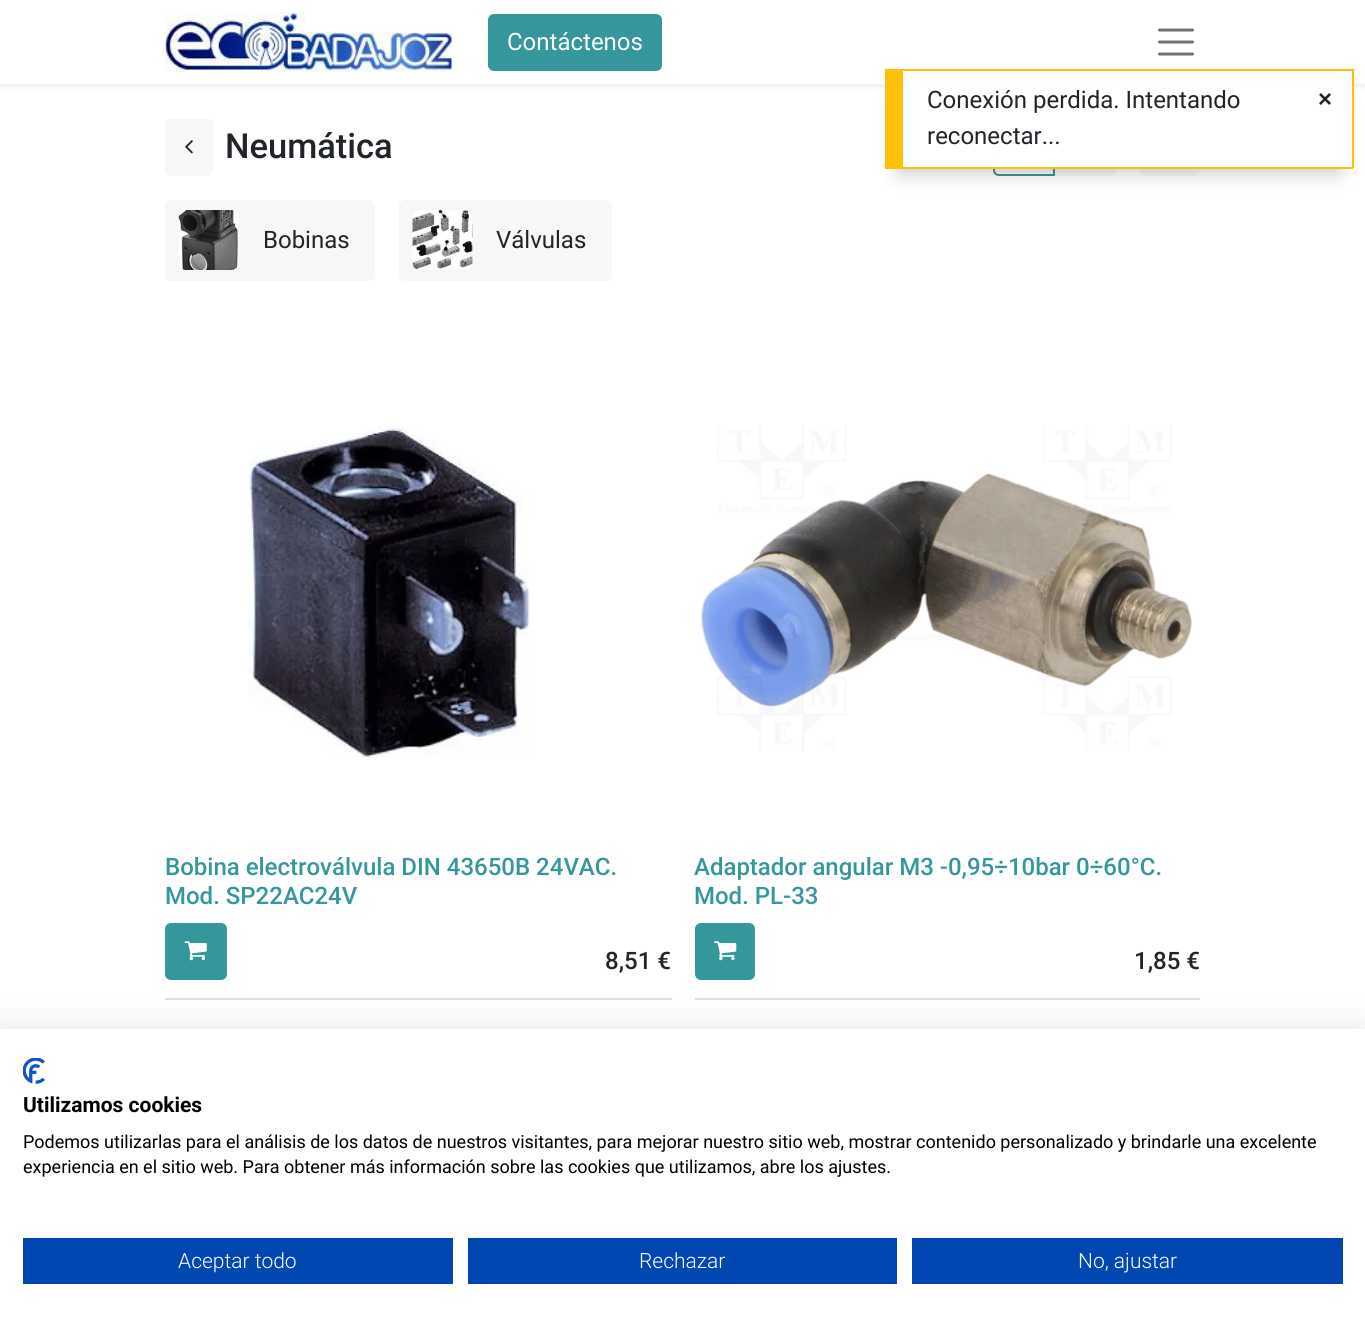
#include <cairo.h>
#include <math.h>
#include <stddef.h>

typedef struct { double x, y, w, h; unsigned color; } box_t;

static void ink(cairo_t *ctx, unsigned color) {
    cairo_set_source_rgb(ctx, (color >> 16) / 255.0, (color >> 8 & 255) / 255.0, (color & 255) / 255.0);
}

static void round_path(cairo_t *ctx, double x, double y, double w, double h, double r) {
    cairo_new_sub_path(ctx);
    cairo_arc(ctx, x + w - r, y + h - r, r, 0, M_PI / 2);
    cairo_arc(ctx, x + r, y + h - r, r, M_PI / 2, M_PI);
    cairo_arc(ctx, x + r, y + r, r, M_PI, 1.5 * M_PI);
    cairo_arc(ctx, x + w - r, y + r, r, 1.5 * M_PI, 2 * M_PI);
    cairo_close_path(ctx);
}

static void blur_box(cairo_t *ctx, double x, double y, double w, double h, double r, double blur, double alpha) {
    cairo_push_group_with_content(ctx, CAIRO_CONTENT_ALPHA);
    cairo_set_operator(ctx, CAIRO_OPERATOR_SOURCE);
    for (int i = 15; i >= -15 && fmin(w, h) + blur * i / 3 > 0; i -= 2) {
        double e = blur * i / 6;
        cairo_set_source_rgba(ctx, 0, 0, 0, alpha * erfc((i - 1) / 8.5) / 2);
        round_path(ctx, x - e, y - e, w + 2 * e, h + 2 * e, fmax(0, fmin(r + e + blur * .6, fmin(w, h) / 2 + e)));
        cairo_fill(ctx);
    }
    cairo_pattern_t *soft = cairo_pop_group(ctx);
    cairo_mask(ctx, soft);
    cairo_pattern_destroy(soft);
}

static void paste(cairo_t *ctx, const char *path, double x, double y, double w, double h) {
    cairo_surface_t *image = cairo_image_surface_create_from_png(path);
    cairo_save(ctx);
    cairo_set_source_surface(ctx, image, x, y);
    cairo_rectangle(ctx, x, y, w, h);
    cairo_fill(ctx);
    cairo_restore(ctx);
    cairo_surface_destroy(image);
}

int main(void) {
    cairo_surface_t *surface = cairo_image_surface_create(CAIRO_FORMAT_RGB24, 1365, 1324);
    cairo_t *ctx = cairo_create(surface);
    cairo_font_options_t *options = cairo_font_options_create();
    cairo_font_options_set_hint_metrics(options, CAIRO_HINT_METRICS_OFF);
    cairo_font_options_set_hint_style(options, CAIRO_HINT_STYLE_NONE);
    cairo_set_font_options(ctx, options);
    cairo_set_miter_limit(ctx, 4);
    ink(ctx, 0xFFFFFF);
    cairo_paint(ctx);
    cairo_save(ctx);
    cairo_rectangle(ctx, 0, 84, 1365, 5);
    cairo_clip(ctx);
    ink(ctx, 0x000000);
    blur_box(ctx, 0, 3, 1365, 84, 0, 3, 0.07);
    cairo_restore(ctx);
    paste(ctx, "media/1.png", 165, 12, 287, 60);
    ink(ctx, 0x35979C);
    round_path(ctx, 489, 15, 172, 55, 5);
    cairo_fill_preserve(ctx);
    cairo_stroke(ctx);
    cairo_select_font_face(ctx, "Roboto", CAIRO_FONT_SLANT_NORMAL, CAIRO_FONT_WEIGHT_NORMAL);
    cairo_set_font_size(ctx, 24);
    ink(ctx, 0xFFFFFF);
    cairo_move_to(ctx, 507, 50);
    cairo_show_text(ctx, "Contáctenos");
    cairo_new_path(ctx);
    cairo_move_to(ctx, 1159.5, 30);
    cairo_line_to(ctx, 1192.5, 30);
    cairo_move_to(ctx, 1159.5, 42);
    cairo_line_to(ctx, 1192.5, 42);
    cairo_move_to(ctx, 1159.5, 54);
    cairo_line_to(ctx, 1192.5, 54);
    ink(ctx, 0x737373);
    cairo_set_line_width(ctx, 3);
    cairo_set_line_cap(ctx, CAIRO_LINE_CAP_ROUND);
    cairo_stroke(ctx);
    ink(ctx, 0xF7F7F7);
    round_path(ctx, 165, 119, 48, 57, 6);
    cairo_fill(ctx);
    paste(ctx, "media/2.png", 185, 140, 8, 14);
    cairo_select_font_face(ctx, "Roboto Medium", CAIRO_FONT_SLANT_NORMAL, CAIRO_FONT_WEIGHT_NORMAL);
    cairo_set_font_size(ctx, 34.5);
    ink(ctx, 0x212529);
    cairo_move_to(ctx, 225, 158);
    cairo_show_text(ctx, "Neumática");
    ink(ctx, 0xF7F7F7);
    cairo_new_path(ctx);
    cairo_move_to(ctx, 1053, 119);
    cairo_line_to(ctx, 1110, 119);
    cairo_curve_to(ctx, 1113.5, 119, 1116, 121.5, 1116, 125);
    cairo_line_to(ctx, 1116, 170);
    cairo_curve_to(ctx, 1116, 173.5, 1113.5, 176, 1110, 176);
    cairo_line_to(ctx, 1053, 176);
    cairo_close_path(ctx);
    cairo_fill(ctx);
    ink(ctx, 0xF9F9F9);
    cairo_new_path(ctx);
    cairo_move_to(ctx, 999, 120);
    cairo_line_to(ctx, 1054, 120);
    cairo_line_to(ctx, 1054, 175);
    cairo_line_to(ctx, 999, 175);
    cairo_curve_to(ctx, 996, 175, 994, 173, 994, 170);
    cairo_line_to(ctx, 994, 125);
    cairo_curve_to(ctx, 994, 122, 996, 120, 999, 120);
    cairo_close_path(ctx);
    cairo_fill_preserve(ctx);
    ink(ctx, 0x35979C);
    cairo_set_line_width(ctx, 2);
    cairo_set_line_cap(ctx, CAIRO_LINE_CAP_BUTT);
    cairo_stroke(ctx);
    ink(ctx, 0xF7F7F7);
    round_path(ctx, 1140, 119, 60, 57, 6);
    cairo_fill(ctx);
    round_path(ctx, 165, 200, 210, 81, 6);
    cairo_fill(ctx);
    paste(ctx, "media/3.png", 178, 210, 61, 60);
    cairo_select_font_face(ctx, "Roboto", CAIRO_FONT_SLANT_NORMAL, CAIRO_FONT_WEIGHT_NORMAL);
    cairo_set_font_size(ctx, 24);
    ink(ctx, 0x212529);
    cairo_move_to(ctx, 263, 248);
    cairo_show_text(ctx, "Bobinas");
    ink(ctx, 0xF7F7F7);
    round_path(ctx, 399, 200, 213, 81, 6);
    cairo_fill(ctx);
    paste(ctx, "media/4.png", 412, 210, 61, 60);
    ink(ctx, 0x212529);
    cairo_move_to(ctx, 496, 248);
    cairo_show_text(ctx, "Válvulas");
    ink(ctx, 0xDFDFDF);
    cairo_rectangle(ctx, 165, 998, 507, 2);
    cairo_fill(ctx);
    paste(ctx, "media/5.png", 248, 426, 282, 332);
    cairo_select_font_face(ctx, "Roboto Medium", CAIRO_FONT_SLANT_NORMAL, CAIRO_FONT_WEIGHT_NORMAL);
    ink(ctx, 0x35979C);
    cairo_move_to(ctx, 165, 875);
    cairo_show_text(ctx, "Bobina electroválvula DIN 43650B 24VAC.");
    cairo_move_to(ctx, 165, 904);
    cairo_show_text(ctx, "Mod. SP22AC24V");
    round_path(ctx, 166, 924, 60, 55, 5);
    cairo_fill_preserve(ctx);
    cairo_stroke(ctx);
    paste(ctx, "media/6.png", 184, 941, 23, 20);
    ink(ctx, 0x212529);
    cairo_move_to(ctx, 605, 969);
    cairo_show_text(ctx, "8,51 €");
    ink(ctx, 0xDFDFDF);
    cairo_rectangle(ctx, 695, 998, 505, 2);
    cairo_fill(ctx);
    paste(ctx, "media/7.png", 701, 424, 492, 328);
    ink(ctx, 0x35979C);
    cairo_move_to(ctx, 694, 875);
    cairo_show_text(ctx, "Adaptador angular M3 -0,95÷10bar 0÷60°C.");
    cairo_move_to(ctx, 694, 904);
    cairo_show_text(ctx, "Mod. PL-33");
    round_path(ctx, 696, 924, 58, 55, 5);
    cairo_fill_preserve(ctx);
    cairo_stroke(ctx);
    paste(ctx, "media/8.png", 714, 941, 23, 20);
    ink(ctx, 0x212529);
    cairo_move_to(ctx, 1134, 969);
    cairo_show_text(ctx, "1,85 €");
    ink(ctx, 0x000000);
    blur_box(ctx, 900, 102, 438, 69, 0, 10.5, 0.25);
    {
        static const box_t items[] = {
            {903, 84, 449, 83, 0xFFFFFF},
            {903, 69, 450, 2, 0xFFC107},
            {1352, 69, 2, 99, 0xFFC107},
            {885, 167, 468, 2, 0xFFC107},
            {885, 69, 18, 98, 0xFFC107},
        };
        for (size_t i = 0; i < sizeof items / sizeof *items; i++) {
            ink(ctx, items[i].color);
            cairo_rectangle(ctx, items[i].x, items[i].y, items[i].w, items[i].h);
            cairo_fill(ctx);
        }
    }
    cairo_select_font_face(ctx, "Roboto", CAIRO_FONT_SLANT_NORMAL, CAIRO_FONT_WEIGHT_NORMAL);
    ink(ctx, 0x212529);
    cairo_move_to(ctx, 927, 108);
    cairo_show_text(ctx, "Conexión perdida. Intentando");
    cairo_move_to(ctx, 927, 144);
    cairo_show_text(ctx, "reconectar...");
    cairo_select_font_face(ctx, "Liberation Sans", CAIRO_FONT_SLANT_NORMAL, CAIRO_FONT_WEIGHT_BOLD);
    cairo_move_to(ctx, 1318, 107);
    cairo_show_text(ctx, "×");
    ink(ctx, 0x000000);
    blur_box(ctx, 0, 1029, 1365, 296, 0, 18, 0.1);
    ink(ctx, 0xFFFFFF);
    cairo_rectangle(ctx, 0, 1029, 1365, 295);
    cairo_fill(ctx);
    paste(ctx, "media/9.png", 23, 1058, 22, 26);
    cairo_select_font_face(ctx, "Roboto", CAIRO_FONT_SLANT_NORMAL, CAIRO_FONT_WEIGHT_BOLD);
    cairo_set_font_size(ctx, 21);
    ink(ctx, 0x000000);
    cairo_move_to(ctx, 23, 1112);
    cairo_show_text(ctx, "Utilizamos cookies");
    cairo_select_font_face(ctx, "Roboto", CAIRO_FONT_SLANT_NORMAL, CAIRO_FONT_WEIGHT_NORMAL);
    cairo_set_font_size(ctx, 18);
    cairo_move_to(ctx, 23, 1148);
    cairo_show_text(ctx, "Podemos utilizarlas para el análisis de los datos de nuestros visitantes, para mejorar nuestro sitio web, mostrar contenido personalizado y brindarle una excelente");
    cairo_move_to(ctx, 23, 1173);
    cairo_show_text(ctx, "experiencia en el sitio web. Para obtener más información sobre las cookies que utilizamos, abre los ajustes.");
    ink(ctx, 0x0047B2);
    cairo_rectangle(ctx, 23, 1238, 430, 46);
    cairo_fill(ctx);
    cairo_select_font_face(ctx, "Roboto Light", CAIRO_FONT_SLANT_NORMAL, CAIRO_FONT_WEIGHT_NORMAL);
    cairo_set_font_size(ctx, 21);
    ink(ctx, 0xFFFFFF);
    cairo_move_to(ctx, 178, 1268);
    cairo_show_text(ctx, "Aceptar todo");
    ink(ctx, 0x0047B2);
    cairo_rectangle(ctx, 468, 1238, 429, 46);
    cairo_fill(ctx);
    ink(ctx, 0xFFFFFF);
    cairo_move_to(ctx, 639, 1268);
    cairo_show_text(ctx, "Rechazar");
    ink(ctx, 0x0047B2);
    cairo_rectangle(ctx, 912, 1238, 431, 46);
    cairo_fill(ctx);
    ink(ctx, 0xFFFFFF);
    cairo_move_to(ctx, 1078, 1268);
    cairo_show_text(ctx, "No, ajustar");
    cairo_surface_write_to_png(surface, "image.png");
    cairo_font_options_destroy(options);
    cairo_destroy(ctx);
    cairo_surface_destroy(surface);
    return 0;
}
